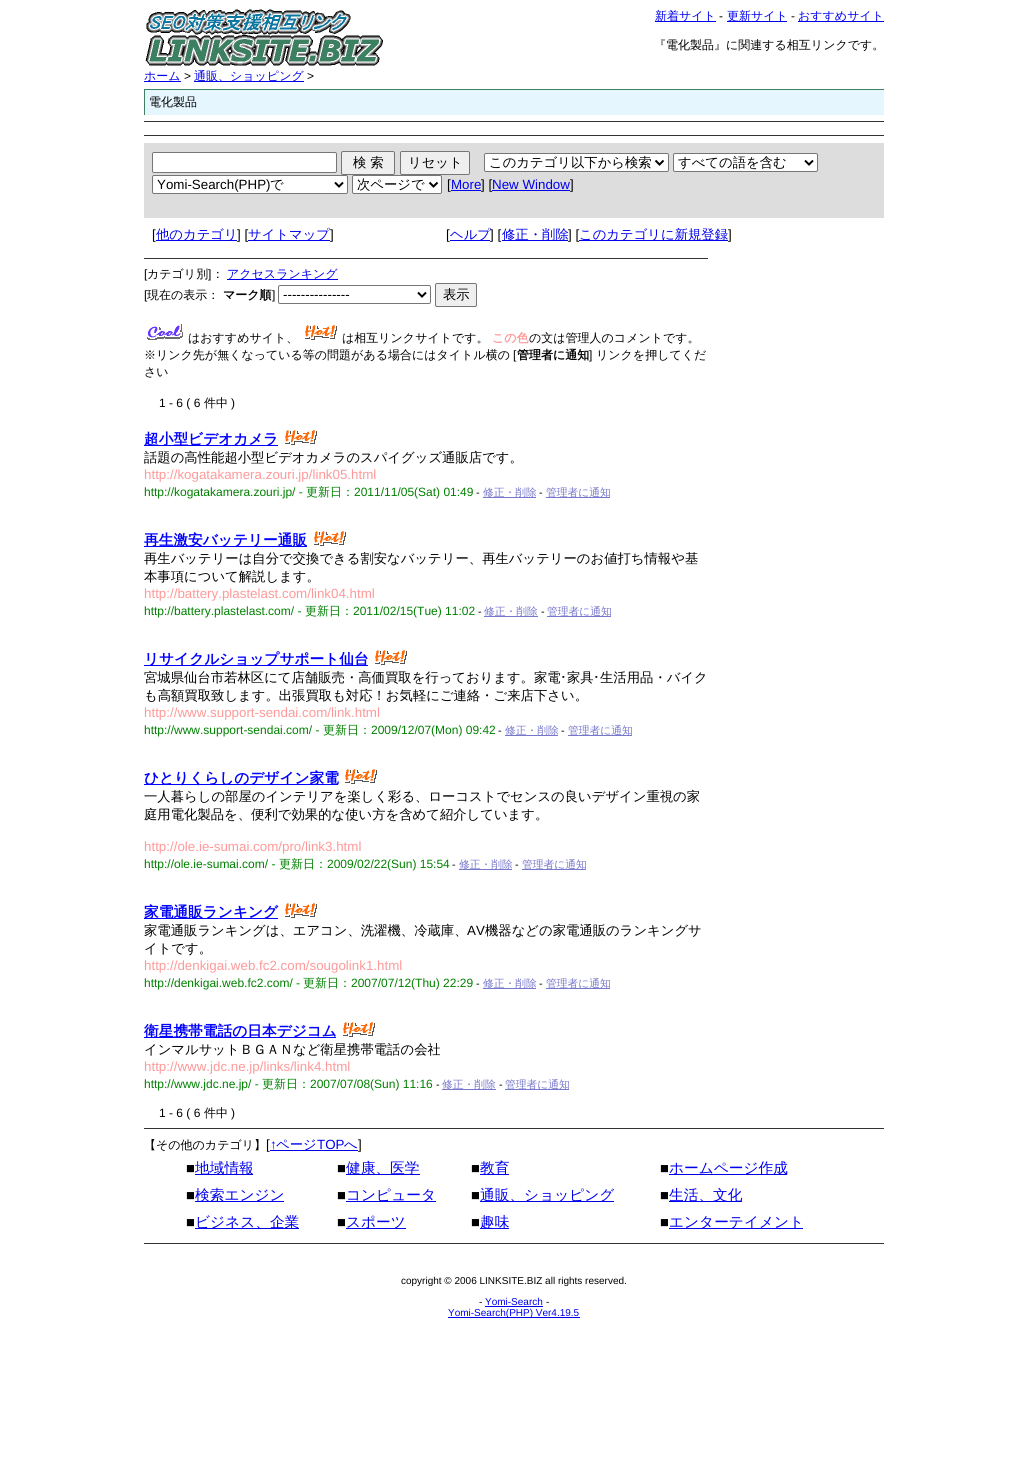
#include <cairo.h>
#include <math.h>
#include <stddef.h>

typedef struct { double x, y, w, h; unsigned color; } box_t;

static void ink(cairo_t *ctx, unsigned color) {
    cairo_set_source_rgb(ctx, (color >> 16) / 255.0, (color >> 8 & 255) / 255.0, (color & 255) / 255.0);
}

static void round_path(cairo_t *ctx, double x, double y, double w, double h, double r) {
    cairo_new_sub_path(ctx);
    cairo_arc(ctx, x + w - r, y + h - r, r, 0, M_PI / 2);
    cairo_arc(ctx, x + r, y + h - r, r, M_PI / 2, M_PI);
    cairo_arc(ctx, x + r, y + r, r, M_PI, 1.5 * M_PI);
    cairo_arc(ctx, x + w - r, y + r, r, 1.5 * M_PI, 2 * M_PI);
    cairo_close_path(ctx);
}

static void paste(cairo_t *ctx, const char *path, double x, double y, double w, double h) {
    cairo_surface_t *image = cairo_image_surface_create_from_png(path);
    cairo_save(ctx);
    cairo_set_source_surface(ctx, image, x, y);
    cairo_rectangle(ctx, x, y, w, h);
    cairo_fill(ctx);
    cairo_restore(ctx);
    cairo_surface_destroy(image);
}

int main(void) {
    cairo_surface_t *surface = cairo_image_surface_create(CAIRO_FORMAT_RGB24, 1028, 1475);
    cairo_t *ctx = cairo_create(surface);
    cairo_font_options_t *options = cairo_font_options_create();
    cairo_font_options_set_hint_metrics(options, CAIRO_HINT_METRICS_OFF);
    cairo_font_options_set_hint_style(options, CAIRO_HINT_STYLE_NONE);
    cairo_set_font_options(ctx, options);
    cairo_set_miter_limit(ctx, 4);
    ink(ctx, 0xFFFFFF);
    cairo_paint(ctx);
    paste(ctx, "media/1.png", 145, 9, 238, 57);
    ink(ctx, 0x0000EE);
    cairo_rectangle(ctx, 655, 21, 61, 1);
    cairo_fill(ctx);
    cairo_select_font_face(ctx, "WenQuanYi Zen Hei Medium", CAIRO_FONT_SLANT_NORMAL, CAIRO_FONT_WEIGHT_NORMAL);
    cairo_set_font_size(ctx, 12);
    cairo_move_to(ctx, 655, 20);
    cairo_show_text(ctx, "新着サイト");
    cairo_select_font_face(ctx, "Liberation Sans", CAIRO_FONT_SLANT_NORMAL, CAIRO_FONT_WEIGHT_NORMAL);
    ink(ctx, 0x000000);
    cairo_move_to(ctx, 719, 20);
    cairo_show_text(ctx, "-");
    ink(ctx, 0x0000EE);
    cairo_rectangle(ctx, 727, 21, 60, 1);
    cairo_fill(ctx);
    cairo_select_font_face(ctx, "WenQuanYi Zen Hei Medium", CAIRO_FONT_SLANT_NORMAL, CAIRO_FONT_WEIGHT_NORMAL);
    cairo_move_to(ctx, 727, 20);
    cairo_show_text(ctx, "更新サイト");
    cairo_select_font_face(ctx, "Liberation Sans", CAIRO_FONT_SLANT_NORMAL, CAIRO_FONT_WEIGHT_NORMAL);
    ink(ctx, 0x000000);
    cairo_move_to(ctx, 791, 20);
    cairo_show_text(ctx, "-");
    ink(ctx, 0x0000EE);
    cairo_rectangle(ctx, 798, 21, 86, 1);
    cairo_fill(ctx);
    cairo_select_font_face(ctx, "WenQuanYi Zen Hei Medium", CAIRO_FONT_SLANT_NORMAL, CAIRO_FONT_WEIGHT_NORMAL);
    cairo_move_to(ctx, 798, 20);
    cairo_show_text(ctx, "おすすめサイト");
    ink(ctx, 0x000000);
    cairo_move_to(ctx, 654, 49);
    cairo_show_text(ctx, "『電化製品』に関連する相互リンクです。");
    ink(ctx, 0x0000EE);
    cairo_rectangle(ctx, 144, 81, 37, 1);
    cairo_fill(ctx);
    cairo_move_to(ctx, 144, 80);
    cairo_show_text(ctx, "ホーム");
    cairo_select_font_face(ctx, "Liberation Sans", CAIRO_FONT_SLANT_NORMAL, CAIRO_FONT_WEIGHT_NORMAL);
    ink(ctx, 0x000000);
    cairo_move_to(ctx, 184, 80);
    cairo_show_text(ctx, ">");
    ink(ctx, 0x0000EE);
    cairo_rectangle(ctx, 194, 81, 110, 1);
    cairo_fill(ctx);
    cairo_select_font_face(ctx, "WenQuanYi Zen Hei Medium", CAIRO_FONT_SLANT_NORMAL, CAIRO_FONT_WEIGHT_NORMAL);
    cairo_move_to(ctx, 194, 80);
    cairo_show_text(ctx, "通販、ショッピング");
    cairo_select_font_face(ctx, "Liberation Sans", CAIRO_FONT_SLANT_NORMAL, CAIRO_FONT_WEIGHT_NORMAL);
    ink(ctx, 0x000000);
    cairo_move_to(ctx, 307, 80);
    cairo_show_text(ctx, ">");
    {
        static const box_t items[] = {
            {145, 90, 739, 25, 0xE5F6FF},
            {144, 89, 740, 1, 0x3E8162},
            {144, 89, 1, 26, 0x3E8162},
        };
        for (size_t i = 0; i < sizeof items / sizeof *items; i++) {
            ink(ctx, items[i].color);
            cairo_rectangle(ctx, items[i].x, items[i].y, items[i].w, items[i].h);
            cairo_fill(ctx);
        }
    }
    cairo_select_font_face(ctx, "WenQuanYi Zen Hei Medium", CAIRO_FONT_SLANT_NORMAL, CAIRO_FONT_WEIGHT_NORMAL);
    ink(ctx, 0x000000);
    cairo_move_to(ctx, 149, 106);
    cairo_show_text(ctx, "電化製品");
    {
        static const box_t items[] = {
            {144, 121, 740, 1, 0x333333},
            {144, 135, 740, 1, 0x333333},
            {144, 143, 740, 75, 0xDDDDDD},
        };
        for (size_t i = 0; i < sizeof items / sizeof *items; i++) {
            ink(ctx, items[i].color);
            cairo_rectangle(ctx, items[i].x, items[i].y, items[i].w, items[i].h);
            cairo_fill(ctx);
        }
    }
    ink(ctx, 0xFFFFFF);
    round_path(ctx, 152.5, 152.5, 184, 20, 1.5);
    cairo_fill_preserve(ctx);
    ink(ctx, 0x767676);
    cairo_set_line_width(ctx, 1);
    cairo_stroke(ctx);
    ink(ctx, 0xEFEFEF);
    round_path(ctx, 341.5, 151.5, 53, 23, 1.5);
    cairo_fill_preserve(ctx);
    ink(ctx, 0x767676);
    cairo_stroke(ctx);
    cairo_set_font_size(ctx, 13.35);
    ink(ctx, 0x000000);
    cairo_move_to(ctx, 353, 167);
    cairo_show_text(ctx, "検 索");
    ink(ctx, 0xEFEFEF);
    round_path(ctx, 400.5, 151.5, 69, 23, 1.5);
    cairo_fill_preserve(ctx);
    ink(ctx, 0x767676);
    cairo_stroke(ctx);
    ink(ctx, 0x000000);
    cairo_move_to(ctx, 408, 167);
    cairo_show_text(ctx, "リセット");
    ink(ctx, 0xFFFFFF);
    round_path(ctx, 484.5, 153.5, 184, 18, 1.5);
    cairo_fill_preserve(ctx);
    ink(ctx, 0x767676);
    cairo_stroke(ctx);
    cairo_new_path(ctx);
    cairo_move_to(ctx, 655.5, 160.5);
    cairo_line_to(ctx, 659.5, 164.5);
    cairo_line_to(ctx, 663.5, 160.5);
    ink(ctx, 0x000000);
    cairo_set_line_width(ctx, 2);
    cairo_stroke(ctx);
    cairo_move_to(ctx, 489, 167);
    cairo_show_text(ctx, "このカテゴリ以下から検索");
    ink(ctx, 0xFFFFFF);
    round_path(ctx, 673.5, 153.5, 144, 18, 1.5);
    cairo_fill_preserve(ctx);
    ink(ctx, 0x767676);
    cairo_set_line_width(ctx, 1);
    cairo_stroke(ctx);
    cairo_new_path(ctx);
    cairo_move_to(ctx, 805, 160.5);
    cairo_line_to(ctx, 809, 164.5);
    cairo_line_to(ctx, 813, 160.5);
    ink(ctx, 0x000000);
    cairo_set_line_width(ctx, 2);
    cairo_stroke(ctx);
    cairo_move_to(ctx, 678, 167);
    cairo_show_text(ctx, "すべての語を含む");
    ink(ctx, 0xFFFFFF);
    round_path(ctx, 152.5, 175.5, 195, 18, 1.5);
    cairo_fill_preserve(ctx);
    ink(ctx, 0x767676);
    cairo_set_line_width(ctx, 1);
    cairo_stroke(ctx);
    cairo_new_path(ctx);
    cairo_move_to(ctx, 335, 182.5);
    cairo_line_to(ctx, 339, 186.5);
    cairo_line_to(ctx, 343, 182.5);
    ink(ctx, 0x000000);
    cairo_set_line_width(ctx, 2);
    cairo_stroke(ctx);
    cairo_select_font_face(ctx, "Liberation Sans", CAIRO_FONT_SLANT_NORMAL, CAIRO_FONT_WEIGHT_NORMAL);
    cairo_move_to(ctx, 157, 189);
    cairo_show_text(ctx, "Yomi-Search(PHP)");
    cairo_select_font_face(ctx, "WenQuanYi Zen Hei Medium", CAIRO_FONT_SLANT_NORMAL, CAIRO_FONT_WEIGHT_NORMAL);
    cairo_move_to(ctx, 270, 189);
    cairo_show_text(ctx, "で");
    ink(ctx, 0xFFFFFF);
    round_path(ctx, 352.5, 175.5, 89, 18, 1.5);
    cairo_fill_preserve(ctx);
    ink(ctx, 0x767676);
    cairo_set_line_width(ctx, 1);
    cairo_stroke(ctx);
    cairo_new_path(ctx);
    cairo_move_to(ctx, 429.5, 182.5);
    cairo_line_to(ctx, 433.5, 186.5);
    cairo_line_to(ctx, 437.5, 182.5);
    ink(ctx, 0x000000);
    cairo_set_line_width(ctx, 2);
    cairo_stroke(ctx);
    cairo_move_to(ctx, 357, 189);
    cairo_show_text(ctx, "次ページで");
    cairo_select_font_face(ctx, "Liberation Sans", CAIRO_FONT_SLANT_NORMAL, CAIRO_FONT_WEIGHT_NORMAL);
    cairo_move_to(ctx, 447, 189);
    cairo_show_text(ctx, "[");
    ink(ctx, 0x0000EE);
    cairo_rectangle(ctx, 451, 190, 30, 1);
    cairo_fill(ctx);
    cairo_move_to(ctx, 451, 189);
    cairo_show_text(ctx, "More");
    ink(ctx, 0x000000);
    cairo_move_to(ctx, 481, 189);
    cairo_show_text(ctx, "] [");
    ink(ctx, 0x0000EE);
    cairo_rectangle(ctx, 492, 190, 78, 1);
    cairo_fill(ctx);
    cairo_move_to(ctx, 492, 189);
    cairo_show_text(ctx, "New Window");
    ink(ctx, 0x000000);
    cairo_move_to(ctx, 570, 189);
    cairo_show_text(ctx, "]");
    cairo_move_to(ctx, 152, 239);
    cairo_show_text(ctx, "[");
    ink(ctx, 0x0000EE);
    cairo_rectangle(ctx, 156, 240, 81, 1);
    cairo_fill(ctx);
    cairo_select_font_face(ctx, "WenQuanYi Zen Hei Medium", CAIRO_FONT_SLANT_NORMAL, CAIRO_FONT_WEIGHT_NORMAL);
    cairo_move_to(ctx, 156, 239);
    cairo_show_text(ctx, "他のカテゴリ");
    cairo_select_font_face(ctx, "Liberation Sans", CAIRO_FONT_SLANT_NORMAL, CAIRO_FONT_WEIGHT_NORMAL);
    ink(ctx, 0x000000);
    cairo_move_to(ctx, 237, 239);
    cairo_show_text(ctx, "] [");
    ink(ctx, 0x0000EE);
    cairo_rectangle(ctx, 248, 240, 82, 1);
    cairo_fill(ctx);
    cairo_select_font_face(ctx, "WenQuanYi Zen Hei Medium", CAIRO_FONT_SLANT_NORMAL, CAIRO_FONT_WEIGHT_NORMAL);
    cairo_move_to(ctx, 248, 239);
    cairo_show_text(ctx, "サイトマップ");
    cairo_select_font_face(ctx, "Liberation Sans", CAIRO_FONT_SLANT_NORMAL, CAIRO_FONT_WEIGHT_NORMAL);
    ink(ctx, 0x000000);
    cairo_move_to(ctx, 330, 239);
    cairo_show_text(ctx, "]");
    cairo_move_to(ctx, 446, 239);
    cairo_show_text(ctx, "[");
    ink(ctx, 0x0000EE);
    cairo_rectangle(ctx, 450, 240, 40, 1);
    cairo_fill(ctx);
    cairo_select_font_face(ctx, "WenQuanYi Zen Hei Medium", CAIRO_FONT_SLANT_NORMAL, CAIRO_FONT_WEIGHT_NORMAL);
    cairo_move_to(ctx, 450, 239);
    cairo_show_text(ctx, "ヘルプ");
    cairo_select_font_face(ctx, "Liberation Sans", CAIRO_FONT_SLANT_NORMAL, CAIRO_FONT_WEIGHT_NORMAL);
    ink(ctx, 0x000000);
    cairo_move_to(ctx, 490, 239);
    cairo_show_text(ctx, "] [");
    ink(ctx, 0x0000EE);
    cairo_rectangle(ctx, 502, 240, 66, 1);
    cairo_fill(ctx);
    cairo_select_font_face(ctx, "WenQuanYi Zen Hei Medium", CAIRO_FONT_SLANT_NORMAL, CAIRO_FONT_WEIGHT_NORMAL);
    cairo_move_to(ctx, 502, 239);
    cairo_show_text(ctx, "修正・削除");
    cairo_select_font_face(ctx, "Liberation Sans", CAIRO_FONT_SLANT_NORMAL, CAIRO_FONT_WEIGHT_NORMAL);
    ink(ctx, 0x000000);
    cairo_move_to(ctx, 568, 239);
    cairo_show_text(ctx, "] [");
    ink(ctx, 0x0000EE);
    cairo_rectangle(ctx, 579, 240, 149, 1);
    cairo_fill(ctx);
    cairo_select_font_face(ctx, "WenQuanYi Zen Hei Medium", CAIRO_FONT_SLANT_NORMAL, CAIRO_FONT_WEIGHT_NORMAL);
    cairo_move_to(ctx, 579, 239);
    cairo_show_text(ctx, "このカテゴリに新規登録");
    cairo_select_font_face(ctx, "Liberation Sans", CAIRO_FONT_SLANT_NORMAL, CAIRO_FONT_WEIGHT_NORMAL);
    ink(ctx, 0x000000);
    cairo_move_to(ctx, 728, 239);
    cairo_show_text(ctx, "]");
    ink(ctx, 0x333333);
    cairo_rectangle(ctx, 144, 258, 564, 1);
    cairo_fill(ctx);
    cairo_set_font_size(ctx, 12);
    ink(ctx, 0x000000);
    cairo_move_to(ctx, 144, 278);
    cairo_show_text(ctx, "[");
    cairo_select_font_face(ctx, "WenQuanYi Zen Hei Medium", CAIRO_FONT_SLANT_NORMAL, CAIRO_FONT_WEIGHT_NORMAL);
    cairo_move_to(ctx, 147, 278);
    cairo_show_text(ctx, "カテゴリ別 ：");
    ink(ctx, 0x0000EE);
    cairo_rectangle(ctx, 227, 279, 111, 1);
    cairo_fill(ctx);
    cairo_move_to(ctx, 227, 278);
    cairo_show_text(ctx, "アクセスランキング");
    cairo_select_font_face(ctx, "Liberation Sans", CAIRO_FONT_SLANT_NORMAL, CAIRO_FONT_WEIGHT_NORMAL);
    ink(ctx, 0x000000);
    cairo_move_to(ctx, 208, 278);
    cairo_show_text(ctx, "]");
    cairo_move_to(ctx, 144, 299);
    cairo_show_text(ctx, "[");
    cairo_select_font_face(ctx, "WenQuanYi Zen Hei Medium", CAIRO_FONT_SLANT_NORMAL, CAIRO_FONT_WEIGHT_NORMAL);
    cairo_move_to(ctx, 147, 299);
    cairo_show_text(ctx, "現在の表示：");
    cairo_select_font_face(ctx, "WenQuanYi Zen Hei", CAIRO_FONT_SLANT_NORMAL, CAIRO_FONT_WEIGHT_BOLD);
    cairo_move_to(ctx, 223, 299);
    cairo_show_text(ctx, "マーク順");
    cairo_select_font_face(ctx, "Liberation Sans", CAIRO_FONT_SLANT_NORMAL, CAIRO_FONT_WEIGHT_NORMAL);
    cairo_move_to(ctx, 272, 299);
    cairo_show_text(ctx, "]");
    round_path(ctx, 278.5, 285.5, 152, 18, 1.5);
    ink(ctx, 0x767676);
    cairo_set_line_width(ctx, 1);
    cairo_stroke(ctx);
    cairo_new_path(ctx);
    cairo_move_to(ctx, 418, 292.5);
    cairo_line_to(ctx, 422, 296.5);
    cairo_line_to(ctx, 426, 292.5);
    ink(ctx, 0x000000);
    cairo_set_line_width(ctx, 2);
    cairo_stroke(ctx);
    cairo_set_font_size(ctx, 13.35);
    cairo_move_to(ctx, 283, 299);
    cairo_show_text(ctx, "---------------");
    ink(ctx, 0xEFEFEF);
    round_path(ctx, 435.5, 283.5, 41, 23, 1.5);
    cairo_fill_preserve(ctx);
    ink(ctx, 0x767676);
    cairo_set_line_width(ctx, 1);
    cairo_stroke(ctx);
    cairo_select_font_face(ctx, "WenQuanYi Zen Hei Medium", CAIRO_FONT_SLANT_NORMAL, CAIRO_FONT_WEIGHT_NORMAL);
    ink(ctx, 0x000000);
    cairo_move_to(ctx, 443, 299);
    cairo_show_text(ctx, "表示");
    paste(ctx, "media/2.png", 147, 324, 36, 16);
    cairo_set_font_size(ctx, 12);
    cairo_move_to(ctx, 188, 342);
    cairo_show_text(ctx, "はおすすめサイト、");
    paste(ctx, "media/3.png", 305, 325, 32, 15);
    cairo_move_to(ctx, 342, 342);
    cairo_show_text(ctx, "は相互リンクサイトです。");
    cairo_select_font_face(ctx, "WenQuanYi Zen Hei", CAIRO_FONT_SLANT_NORMAL, CAIRO_FONT_WEIGHT_BOLD);
    ink(ctx, 0xFF9999);
    cairo_move_to(ctx, 492, 342);
    cairo_show_text(ctx, "この色");
    cairo_select_font_face(ctx, "WenQuanYi Zen Hei Medium", CAIRO_FONT_SLANT_NORMAL, CAIRO_FONT_WEIGHT_NORMAL);
    ink(ctx, 0x000000);
    cairo_move_to(ctx, 529, 342);
    cairo_show_text(ctx, "の文は管理人のコメントです。");
    cairo_move_to(ctx, 144, 359);
    cairo_show_text(ctx, "※リンク先が無くなっている等の問題がある場合にはタイトル横の");
    cairo_select_font_face(ctx, "Liberation Sans", CAIRO_FONT_SLANT_NORMAL, CAIRO_FONT_WEIGHT_NORMAL);
    cairo_move_to(ctx, 513, 359);
    cairo_show_text(ctx, "[");
    cairo_select_font_face(ctx, "WenQuanYi Zen Hei", CAIRO_FONT_SLANT_NORMAL, CAIRO_FONT_WEIGHT_BOLD);
    cairo_move_to(ctx, 517, 359);
    cairo_show_text(ctx, "管理者に通知");
    cairo_select_font_face(ctx, "Liberation Sans", CAIRO_FONT_SLANT_NORMAL, CAIRO_FONT_WEIGHT_NORMAL);
    cairo_move_to(ctx, 589, 359);
    cairo_show_text(ctx, "]");
    cairo_select_font_face(ctx, "WenQuanYi Zen Hei Medium", CAIRO_FONT_SLANT_NORMAL, CAIRO_FONT_WEIGHT_NORMAL);
    cairo_move_to(ctx, 596, 359);
    cairo_show_text(ctx, "リンクを押してくだ");
    cairo_move_to(ctx, 144, 376);
    cairo_show_text(ctx, "さい");
    cairo_select_font_face(ctx, "Liberation Sans", CAIRO_FONT_SLANT_NORMAL, CAIRO_FONT_WEIGHT_NORMAL);
    cairo_move_to(ctx, 159, 407);
    cairo_show_text(ctx, "1 - 6 ( 6");
    cairo_select_font_face(ctx, "WenQuanYi Zen Hei Medium", CAIRO_FONT_SLANT_NORMAL, CAIRO_FONT_WEIGHT_NORMAL);
    cairo_move_to(ctx, 204, 407);
    cairo_show_text(ctx, "件中");
    cairo_select_font_face(ctx, "Liberation Sans", CAIRO_FONT_SLANT_NORMAL, CAIRO_FONT_WEIGHT_NORMAL);
    cairo_move_to(ctx, 231, 407);
    cairo_show_text(ctx, ")");
    ink(ctx, 0x0000FF);
    cairo_rectangle(ctx, 144, 445, 134, 1);
    cairo_fill(ctx);
    cairo_select_font_face(ctx, "WenQuanYi Zen Hei", CAIRO_FONT_SLANT_NORMAL, CAIRO_FONT_WEIGHT_BOLD);
    cairo_set_font_size(ctx, 14.7);
    cairo_move_to(ctx, 144, 444);
    cairo_show_text(ctx, "超小型ビデオカメラ");
    paste(ctx, "media/3.png", 285, 430, 32, 15);
    cairo_select_font_face(ctx, "WenQuanYi Zen Hei Medium", CAIRO_FONT_SLANT_NORMAL, CAIRO_FONT_WEIGHT_NORMAL);
    cairo_set_font_size(ctx, 13.35);
    ink(ctx, 0x000000);
    cairo_move_to(ctx, 144, 462);
    cairo_show_text(ctx, "話題の高性能超小型ビデオカメラのスパイグッズ通販店です。");
    cairo_select_font_face(ctx, "Liberation Sans", CAIRO_FONT_SLANT_NORMAL, CAIRO_FONT_WEIGHT_NORMAL);
    ink(ctx, 0xFF9999);
    cairo_move_to(ctx, 144, 479);
    cairo_show_text(ctx, "http://kogatakamera.zouri.jp/link05.html");
    cairo_set_font_size(ctx, 12);
    ink(ctx, 0x008000);
    cairo_move_to(ctx, 144, 496);
    cairo_show_text(ctx, "http://kogatakamera.zouri.jp/ -");
    cairo_select_font_face(ctx, "WenQuanYi Zen Hei Medium", CAIRO_FONT_SLANT_NORMAL, CAIRO_FONT_WEIGHT_NORMAL);
    cairo_move_to(ctx, 306, 496);
    cairo_show_text(ctx, "更新日：");
    cairo_select_font_face(ctx, "Liberation Sans", CAIRO_FONT_SLANT_NORMAL, CAIRO_FONT_WEIGHT_NORMAL);
    cairo_move_to(ctx, 354, 496);
    cairo_show_text(ctx, "2011/11/05(Sat) 01:49");
    cairo_set_font_size(ctx, 10.75);
    ink(ctx, 0x000000);
    cairo_move_to(ctx, 476, 496);
    cairo_show_text(ctx, "-");
    ink(ctx, 0x7777CC);
    cairo_rectangle(ctx, 483, 497, 53, 1);
    cairo_fill(ctx);
    cairo_select_font_face(ctx, "WenQuanYi Zen Hei Medium", CAIRO_FONT_SLANT_NORMAL, CAIRO_FONT_WEIGHT_NORMAL);
    cairo_move_to(ctx, 483, 496);
    cairo_show_text(ctx, "修正・削除");
    cairo_select_font_face(ctx, "Liberation Sans", CAIRO_FONT_SLANT_NORMAL, CAIRO_FONT_WEIGHT_NORMAL);
    ink(ctx, 0x000000);
    cairo_move_to(ctx, 539, 496);
    cairo_show_text(ctx, "-");
    ink(ctx, 0x7777CC);
    cairo_rectangle(ctx, 546, 497, 64, 1);
    cairo_fill(ctx);
    cairo_select_font_face(ctx, "WenQuanYi Zen Hei Medium", CAIRO_FONT_SLANT_NORMAL, CAIRO_FONT_WEIGHT_NORMAL);
    cairo_move_to(ctx, 546, 496);
    cairo_show_text(ctx, "管理者に通知");
    ink(ctx, 0x0000FF);
    cairo_rectangle(ctx, 144, 546, 163, 1);
    cairo_fill(ctx);
    cairo_select_font_face(ctx, "WenQuanYi Zen Hei", CAIRO_FONT_SLANT_NORMAL, CAIRO_FONT_WEIGHT_BOLD);
    cairo_set_font_size(ctx, 14.7);
    cairo_move_to(ctx, 144, 545);
    cairo_show_text(ctx, "再生激安バッテリー通販");
    paste(ctx, "media/3.png", 314, 531, 32, 15);
    cairo_select_font_face(ctx, "WenQuanYi Zen Hei Medium", CAIRO_FONT_SLANT_NORMAL, CAIRO_FONT_WEIGHT_NORMAL);
    cairo_set_font_size(ctx, 13.35);
    ink(ctx, 0x000000);
    cairo_move_to(ctx, 144, 563);
    cairo_show_text(ctx, "再生バッテリーは自分で交換できる割安なバッテリー、再生バッテリーのお値打ち情報や基");
    cairo_move_to(ctx, 144, 581);
    cairo_show_text(ctx, "本事項について解説します。");
    cairo_select_font_face(ctx, "Liberation Sans", CAIRO_FONT_SLANT_NORMAL, CAIRO_FONT_WEIGHT_NORMAL);
    ink(ctx, 0xFF9999);
    cairo_move_to(ctx, 144, 598);
    cairo_show_text(ctx, "http://battery.plastelast.com/link04.html");
    cairo_set_font_size(ctx, 12);
    ink(ctx, 0x008000);
    cairo_move_to(ctx, 144, 615);
    cairo_show_text(ctx, "http://battery.plastelast.com/ -");
    cairo_select_font_face(ctx, "WenQuanYi Zen Hei Medium", CAIRO_FONT_SLANT_NORMAL, CAIRO_FONT_WEIGHT_NORMAL);
    cairo_move_to(ctx, 305, 615);
    cairo_show_text(ctx, "更新日：");
    cairo_select_font_face(ctx, "Liberation Sans", CAIRO_FONT_SLANT_NORMAL, CAIRO_FONT_WEIGHT_NORMAL);
    cairo_move_to(ctx, 353, 615);
    cairo_show_text(ctx, "2011/02/15(Tue) 11:02");
    cairo_set_font_size(ctx, 10.75);
    ink(ctx, 0x000000);
    cairo_move_to(ctx, 478, 615);
    cairo_show_text(ctx, "-");
    ink(ctx, 0x7777CC);
    cairo_rectangle(ctx, 484, 616, 54, 1);
    cairo_fill(ctx);
    cairo_select_font_face(ctx, "WenQuanYi Zen Hei Medium", CAIRO_FONT_SLANT_NORMAL, CAIRO_FONT_WEIGHT_NORMAL);
    cairo_move_to(ctx, 484, 615);
    cairo_show_text(ctx, "修正・削除");
    cairo_select_font_face(ctx, "Liberation Sans", CAIRO_FONT_SLANT_NORMAL, CAIRO_FONT_WEIGHT_NORMAL);
    ink(ctx, 0x000000);
    cairo_move_to(ctx, 541, 615);
    cairo_show_text(ctx, "-");
    ink(ctx, 0x7777CC);
    cairo_rectangle(ctx, 547, 616, 64, 1);
    cairo_fill(ctx);
    cairo_select_font_face(ctx, "WenQuanYi Zen Hei Medium", CAIRO_FONT_SLANT_NORMAL, CAIRO_FONT_WEIGHT_NORMAL);
    cairo_move_to(ctx, 547, 615);
    cairo_show_text(ctx, "管理者に通知");
    ink(ctx, 0x0000FF);
    cairo_rectangle(ctx, 144, 665, 224, 1);
    cairo_fill(ctx);
    cairo_select_font_face(ctx, "WenQuanYi Zen Hei", CAIRO_FONT_SLANT_NORMAL, CAIRO_FONT_WEIGHT_BOLD);
    cairo_set_font_size(ctx, 14.7);
    cairo_move_to(ctx, 144, 664);
    cairo_show_text(ctx, "リサイクルショップサポート仙台");
    paste(ctx, "media/3.png", 375, 650, 32, 15);
    cairo_select_font_face(ctx, "WenQuanYi Zen Hei Medium", CAIRO_FONT_SLANT_NORMAL, CAIRO_FONT_WEIGHT_NORMAL);
    cairo_set_font_size(ctx, 13.35);
    ink(ctx, 0x000000);
    cairo_move_to(ctx, 144, 682);
    cairo_show_text(ctx, "宮城県仙台市若林区にて店舗販売・高価買取を行っております。家電");
    cairo_select_font_face(ctx, "IPAPGothic", CAIRO_FONT_SLANT_NORMAL, CAIRO_FONT_WEIGHT_NORMAL);
    cairo_move_to(ctx, 560, 682);
    cairo_show_text(ctx, "･");
    cairo_select_font_face(ctx, "WenQuanYi Zen Hei Medium", CAIRO_FONT_SLANT_NORMAL, CAIRO_FONT_WEIGHT_NORMAL);
    cairo_move_to(ctx, 567, 682);
    cairo_show_text(ctx, "家具");
    cairo_select_font_face(ctx, "IPAPGothic", CAIRO_FONT_SLANT_NORMAL, CAIRO_FONT_WEIGHT_NORMAL);
    cairo_move_to(ctx, 593, 682);
    cairo_show_text(ctx, "･");
    cairo_select_font_face(ctx, "WenQuanYi Zen Hei Medium", CAIRO_FONT_SLANT_NORMAL, CAIRO_FONT_WEIGHT_NORMAL);
    cairo_move_to(ctx, 600, 682);
    cairo_show_text(ctx, "生活用品・バイク");
    cairo_move_to(ctx, 144, 700);
    cairo_show_text(ctx, "も高額買取致します。出張買取も対応！お気軽にご連絡・ご来店下さい。");
    cairo_select_font_face(ctx, "Liberation Sans", CAIRO_FONT_SLANT_NORMAL, CAIRO_FONT_WEIGHT_NORMAL);
    ink(ctx, 0xFF9999);
    cairo_move_to(ctx, 144, 717);
    cairo_show_text(ctx, "http://www.support-sendai.com/link.html");
    cairo_set_font_size(ctx, 12);
    ink(ctx, 0x008000);
    cairo_move_to(ctx, 144, 734);
    cairo_show_text(ctx, "http://www.support-sendai.com/ -");
    cairo_select_font_face(ctx, "WenQuanYi Zen Hei Medium", CAIRO_FONT_SLANT_NORMAL, CAIRO_FONT_WEIGHT_NORMAL);
    cairo_move_to(ctx, 323, 734);
    cairo_show_text(ctx, "更新日：");
    cairo_select_font_face(ctx, "Liberation Sans", CAIRO_FONT_SLANT_NORMAL, CAIRO_FONT_WEIGHT_NORMAL);
    cairo_move_to(ctx, 371, 734);
    cairo_show_text(ctx, "2009/12/07(Mon) 09:42");
    cairo_set_font_size(ctx, 10.75);
    ink(ctx, 0x000000);
    cairo_move_to(ctx, 498, 734);
    cairo_show_text(ctx, "-");
    ink(ctx, 0x7777CC);
    cairo_rectangle(ctx, 505, 735, 53, 1);
    cairo_fill(ctx);
    cairo_select_font_face(ctx, "WenQuanYi Zen Hei Medium", CAIRO_FONT_SLANT_NORMAL, CAIRO_FONT_WEIGHT_NORMAL);
    cairo_move_to(ctx, 505, 734);
    cairo_show_text(ctx, "修正・削除");
    cairo_select_font_face(ctx, "Liberation Sans", CAIRO_FONT_SLANT_NORMAL, CAIRO_FONT_WEIGHT_NORMAL);
    ink(ctx, 0x000000);
    cairo_move_to(ctx, 561, 734);
    cairo_show_text(ctx, "-");
    ink(ctx, 0x7777CC);
    cairo_rectangle(ctx, 568, 735, 64, 1);
    cairo_fill(ctx);
    cairo_select_font_face(ctx, "WenQuanYi Zen Hei Medium", CAIRO_FONT_SLANT_NORMAL, CAIRO_FONT_WEIGHT_NORMAL);
    cairo_move_to(ctx, 568, 734);
    cairo_show_text(ctx, "管理者に通知");
    ink(ctx, 0x0000FF);
    cairo_rectangle(ctx, 144, 784, 194, 1);
    cairo_fill(ctx);
    cairo_select_font_face(ctx, "WenQuanYi Zen Hei", CAIRO_FONT_SLANT_NORMAL, CAIRO_FONT_WEIGHT_BOLD);
    cairo_set_font_size(ctx, 14.7);
    cairo_move_to(ctx, 144, 783);
    cairo_show_text(ctx, "ひとりくらしのデザイン家電");
    paste(ctx, "media/3.png", 345, 769, 32, 15);
    cairo_select_font_face(ctx, "WenQuanYi Zen Hei Medium", CAIRO_FONT_SLANT_NORMAL, CAIRO_FONT_WEIGHT_NORMAL);
    cairo_set_font_size(ctx, 13.35);
    ink(ctx, 0x000000);
    cairo_move_to(ctx, 144, 801);
    cairo_show_text(ctx, "一人暮らしの部屋のインテリアを楽しく彩る、ローコストでセンスの良いデザイン重視の家");
    cairo_move_to(ctx, 144, 819);
    cairo_show_text(ctx, "庭用電化製品を、便利で効果的な使い方を含めて紹介しています。");
    cairo_select_font_face(ctx, "Liberation Sans", CAIRO_FONT_SLANT_NORMAL, CAIRO_FONT_WEIGHT_NORMAL);
    ink(ctx, 0xFF9999);
    cairo_move_to(ctx, 144, 851);
    cairo_show_text(ctx, "http://ole.ie-sumai.com/pro/link3.html");
    cairo_set_font_size(ctx, 12);
    ink(ctx, 0x008000);
    cairo_move_to(ctx, 144, 868);
    cairo_show_text(ctx, "http://ole.ie-sumai.com/ -");
    cairo_select_font_face(ctx, "WenQuanYi Zen Hei Medium", CAIRO_FONT_SLANT_NORMAL, CAIRO_FONT_WEIGHT_NORMAL);
    cairo_move_to(ctx, 279, 868);
    cairo_show_text(ctx, "更新日：");
    cairo_select_font_face(ctx, "Liberation Sans", CAIRO_FONT_SLANT_NORMAL, CAIRO_FONT_WEIGHT_NORMAL);
    cairo_move_to(ctx, 327, 868);
    cairo_show_text(ctx, "2009/02/22(Sun) 15:54");
    cairo_set_font_size(ctx, 10.75);
    ink(ctx, 0x000000);
    cairo_move_to(ctx, 452, 868);
    cairo_show_text(ctx, "-");
    ink(ctx, 0x7777CC);
    cairo_rectangle(ctx, 459, 869, 53, 1);
    cairo_fill(ctx);
    cairo_select_font_face(ctx, "WenQuanYi Zen Hei Medium", CAIRO_FONT_SLANT_NORMAL, CAIRO_FONT_WEIGHT_NORMAL);
    cairo_move_to(ctx, 459, 868);
    cairo_show_text(ctx, "修正・削除");
    cairo_select_font_face(ctx, "Liberation Sans", CAIRO_FONT_SLANT_NORMAL, CAIRO_FONT_WEIGHT_NORMAL);
    ink(ctx, 0x000000);
    cairo_move_to(ctx, 515, 868);
    cairo_show_text(ctx, "-");
    ink(ctx, 0x7777CC);
    cairo_rectangle(ctx, 522, 869, 64, 1);
    cairo_fill(ctx);
    cairo_select_font_face(ctx, "WenQuanYi Zen Hei Medium", CAIRO_FONT_SLANT_NORMAL, CAIRO_FONT_WEIGHT_NORMAL);
    cairo_move_to(ctx, 522, 868);
    cairo_show_text(ctx, "管理者に通知");
    ink(ctx, 0x0000FF);
    cairo_rectangle(ctx, 144, 918, 134, 1);
    cairo_fill(ctx);
    cairo_select_font_face(ctx, "WenQuanYi Zen Hei", CAIRO_FONT_SLANT_NORMAL, CAIRO_FONT_WEIGHT_BOLD);
    cairo_set_font_size(ctx, 14.7);
    cairo_move_to(ctx, 144, 917);
    cairo_show_text(ctx, "家電通販ランキング");
    paste(ctx, "media/3.png", 285, 903, 32, 15);
    cairo_select_font_face(ctx, "WenQuanYi Zen Hei Medium", CAIRO_FONT_SLANT_NORMAL, CAIRO_FONT_WEIGHT_NORMAL);
    cairo_set_font_size(ctx, 13.35);
    ink(ctx, 0x000000);
    cairo_move_to(ctx, 144, 935);
    cairo_show_text(ctx, "家電通販ランキングは、エアコン、洗濯機、冷蔵庫、");
    cairo_select_font_face(ctx, "Liberation Sans", CAIRO_FONT_SLANT_NORMAL, CAIRO_FONT_WEIGHT_NORMAL);
    cairo_move_to(ctx, 467, 935);
    cairo_show_text(ctx, "AV");
    cairo_select_font_face(ctx, "WenQuanYi Zen Hei Medium", CAIRO_FONT_SLANT_NORMAL, CAIRO_FONT_WEIGHT_NORMAL);
    cairo_move_to(ctx, 485, 935);
    cairo_show_text(ctx, "機器などの家電通販のランキングサ");
    cairo_move_to(ctx, 144, 953);
    cairo_show_text(ctx, "イトです。");
    cairo_select_font_face(ctx, "Liberation Sans", CAIRO_FONT_SLANT_NORMAL, CAIRO_FONT_WEIGHT_NORMAL);
    ink(ctx, 0xFF9999);
    cairo_move_to(ctx, 144, 970);
    cairo_show_text(ctx, "http://denkigai.web.fc2.com/sougolink1.html");
    cairo_set_font_size(ctx, 12);
    ink(ctx, 0x008000);
    cairo_move_to(ctx, 144, 987);
    cairo_show_text(ctx, "http://denkigai.web.fc2.com/ -");
    cairo_select_font_face(ctx, "WenQuanYi Zen Hei Medium", CAIRO_FONT_SLANT_NORMAL, CAIRO_FONT_WEIGHT_NORMAL);
    cairo_move_to(ctx, 303, 987);
    cairo_show_text(ctx, "更新日：");
    cairo_select_font_face(ctx, "Liberation Sans", CAIRO_FONT_SLANT_NORMAL, CAIRO_FONT_WEIGHT_NORMAL);
    cairo_move_to(ctx, 351, 987);
    cairo_show_text(ctx, "2007/07/12(Thu) 22:29");
    cairo_set_font_size(ctx, 10.75);
    ink(ctx, 0x000000);
    cairo_move_to(ctx, 476, 987);
    cairo_show_text(ctx, "-");
    ink(ctx, 0x7777CC);
    cairo_rectangle(ctx, 483, 988, 53, 1);
    cairo_fill(ctx);
    cairo_select_font_face(ctx, "WenQuanYi Zen Hei Medium", CAIRO_FONT_SLANT_NORMAL, CAIRO_FONT_WEIGHT_NORMAL);
    cairo_move_to(ctx, 483, 987);
    cairo_show_text(ctx, "修正・削除");
    cairo_select_font_face(ctx, "Liberation Sans", CAIRO_FONT_SLANT_NORMAL, CAIRO_FONT_WEIGHT_NORMAL);
    ink(ctx, 0x000000);
    cairo_move_to(ctx, 539, 987);
    cairo_show_text(ctx, "-");
    ink(ctx, 0x7777CC);
    cairo_rectangle(ctx, 546, 988, 64, 1);
    cairo_fill(ctx);
    cairo_select_font_face(ctx, "WenQuanYi Zen Hei Medium", CAIRO_FONT_SLANT_NORMAL, CAIRO_FONT_WEIGHT_NORMAL);
    cairo_move_to(ctx, 546, 987);
    cairo_show_text(ctx, "管理者に通知");
    ink(ctx, 0x0000FF);
    cairo_rectangle(ctx, 144, 1037, 192, 1);
    cairo_fill(ctx);
    cairo_select_font_face(ctx, "WenQuanYi Zen Hei", CAIRO_FONT_SLANT_NORMAL, CAIRO_FONT_WEIGHT_BOLD);
    cairo_set_font_size(ctx, 14.7);
    cairo_move_to(ctx, 144, 1036);
    cairo_show_text(ctx, "衛星携帯電話の日本デジコム");
    paste(ctx, "media/3.png", 343, 1022, 32, 15);
    cairo_select_font_face(ctx, "WenQuanYi Zen Hei Medium", CAIRO_FONT_SLANT_NORMAL, CAIRO_FONT_WEIGHT_NORMAL);
    cairo_set_font_size(ctx, 13.35);
    ink(ctx, 0x000000);
    cairo_move_to(ctx, 144, 1054);
    cairo_show_text(ctx, "インマルサットＢＧＡＮなど衛星携帯電話の会社");
    cairo_select_font_face(ctx, "Liberation Sans", CAIRO_FONT_SLANT_NORMAL, CAIRO_FONT_WEIGHT_NORMAL);
    ink(ctx, 0xFF9999);
    cairo_move_to(ctx, 144, 1071);
    cairo_show_text(ctx, "http://www.jdc.ne.jp/links/link4.html");
    cairo_set_font_size(ctx, 12);
    ink(ctx, 0x008000);
    cairo_move_to(ctx, 144, 1088);
    cairo_show_text(ctx, "http://www.jdc.ne.jp/ -");
    cairo_select_font_face(ctx, "WenQuanYi Zen Hei Medium", CAIRO_FONT_SLANT_NORMAL, CAIRO_FONT_WEIGHT_NORMAL);
    cairo_move_to(ctx, 262, 1088);
    cairo_show_text(ctx, "更新日：");
    cairo_select_font_face(ctx, "Liberation Sans", CAIRO_FONT_SLANT_NORMAL, CAIRO_FONT_WEIGHT_NORMAL);
    cairo_move_to(ctx, 310, 1088);
    cairo_show_text(ctx, "2007/07/08(Sun) 11:16");
    cairo_set_font_size(ctx, 10.75);
    ink(ctx, 0x000000);
    cairo_move_to(ctx, 436, 1088);
    cairo_show_text(ctx, "-");
    ink(ctx, 0x7777CC);
    cairo_rectangle(ctx, 442, 1089, 54, 1);
    cairo_fill(ctx);
    cairo_select_font_face(ctx, "WenQuanYi Zen Hei Medium", CAIRO_FONT_SLANT_NORMAL, CAIRO_FONT_WEIGHT_NORMAL);
    cairo_move_to(ctx, 442, 1088);
    cairo_show_text(ctx, "修正・削除");
    cairo_select_font_face(ctx, "Liberation Sans", CAIRO_FONT_SLANT_NORMAL, CAIRO_FONT_WEIGHT_NORMAL);
    ink(ctx, 0x000000);
    cairo_move_to(ctx, 499, 1088);
    cairo_show_text(ctx, "-");
    ink(ctx, 0x7777CC);
    cairo_rectangle(ctx, 505, 1089, 64, 1);
    cairo_fill(ctx);
    cairo_select_font_face(ctx, "WenQuanYi Zen Hei Medium", CAIRO_FONT_SLANT_NORMAL, CAIRO_FONT_WEIGHT_NORMAL);
    cairo_move_to(ctx, 505, 1088);
    cairo_show_text(ctx, "管理者に通知");
    cairo_select_font_face(ctx, "Liberation Sans", CAIRO_FONT_SLANT_NORMAL, CAIRO_FONT_WEIGHT_NORMAL);
    cairo_set_font_size(ctx, 12);
    ink(ctx, 0x000000);
    cairo_move_to(ctx, 159, 1117);
    cairo_show_text(ctx, "1 - 6 ( 6");
    cairo_select_font_face(ctx, "WenQuanYi Zen Hei Medium", CAIRO_FONT_SLANT_NORMAL, CAIRO_FONT_WEIGHT_NORMAL);
    cairo_move_to(ctx, 204, 1117);
    cairo_show_text(ctx, "件中");
    cairo_select_font_face(ctx, "Liberation Sans", CAIRO_FONT_SLANT_NORMAL, CAIRO_FONT_WEIGHT_NORMAL);
    cairo_move_to(ctx, 231, 1117);
    cairo_show_text(ctx, ")");
    ink(ctx, 0x333333);
    cairo_rectangle(ctx, 144, 1128, 740, 1);
    cairo_fill(ctx);
    cairo_select_font_face(ctx, "WenQuanYi Zen Hei Medium", CAIRO_FONT_SLANT_NORMAL, CAIRO_FONT_WEIGHT_NORMAL);
    ink(ctx, 0x000000);
    cairo_move_to(ctx, 144, 1149);
    cairo_show_text(ctx, "【その他のカテゴリ】");
    cairo_select_font_face(ctx, "Liberation Sans", CAIRO_FONT_SLANT_NORMAL, CAIRO_FONT_WEIGHT_NORMAL);
    cairo_set_font_size(ctx, 13.35);
    cairo_move_to(ctx, 266, 1149);
    cairo_show_text(ctx, "[");
    ink(ctx, 0x0000EE);
    cairo_rectangle(ctx, 270, 1150, 88, 1);
    cairo_fill(ctx);
    cairo_move_to(ctx, 270, 1149);
    cairo_show_text(ctx, "↑");
    cairo_select_font_face(ctx, "WenQuanYi Zen Hei Medium", CAIRO_FONT_SLANT_NORMAL, CAIRO_FONT_WEIGHT_NORMAL);
    cairo_move_to(ctx, 276, 1149);
    cairo_show_text(ctx, "ページ");
    cairo_select_font_face(ctx, "Liberation Sans", CAIRO_FONT_SLANT_NORMAL, CAIRO_FONT_WEIGHT_NORMAL);
    cairo_move_to(ctx, 317, 1149);
    cairo_show_text(ctx, "TOP");
    cairo_select_font_face(ctx, "WenQuanYi Zen Hei Medium", CAIRO_FONT_SLANT_NORMAL, CAIRO_FONT_WEIGHT_NORMAL);
    cairo_move_to(ctx, 344, 1149);
    cairo_show_text(ctx, "へ");
    cairo_select_font_face(ctx, "Liberation Sans", CAIRO_FONT_SLANT_NORMAL, CAIRO_FONT_WEIGHT_NORMAL);
    ink(ctx, 0x000000);
    cairo_move_to(ctx, 358, 1149);
    cairo_show_text(ctx, "]");
    cairo_set_font_size(ctx, 14.7);
    cairo_move_to(ctx, 186, 1173);
    cairo_show_text(ctx, "■");
    ink(ctx, 0x0000EE);
    cairo_rectangle(ctx, 195, 1174, 58, 1);
    cairo_fill(ctx);
    cairo_select_font_face(ctx, "WenQuanYi Zen Hei Medium", CAIRO_FONT_SLANT_NORMAL, CAIRO_FONT_WEIGHT_NORMAL);
    cairo_move_to(ctx, 195, 1173);
    cairo_show_text(ctx, "地域情報");
    cairo_select_font_face(ctx, "Liberation Sans", CAIRO_FONT_SLANT_NORMAL, CAIRO_FONT_WEIGHT_NORMAL);
    ink(ctx, 0x000000);
    cairo_move_to(ctx, 337, 1173);
    cairo_show_text(ctx, "■");
    ink(ctx, 0x0000EE);
    cairo_rectangle(ctx, 346, 1174, 74, 1);
    cairo_fill(ctx);
    cairo_select_font_face(ctx, "WenQuanYi Zen Hei Medium", CAIRO_FONT_SLANT_NORMAL, CAIRO_FONT_WEIGHT_NORMAL);
    cairo_move_to(ctx, 346, 1173);
    cairo_show_text(ctx, "健康、医学");
    cairo_select_font_face(ctx, "Liberation Sans", CAIRO_FONT_SLANT_NORMAL, CAIRO_FONT_WEIGHT_NORMAL);
    ink(ctx, 0x000000);
    cairo_move_to(ctx, 471, 1173);
    cairo_show_text(ctx, "■");
    ink(ctx, 0x0000EE);
    cairo_rectangle(ctx, 480, 1174, 29, 1);
    cairo_fill(ctx);
    cairo_select_font_face(ctx, "WenQuanYi Zen Hei Medium", CAIRO_FONT_SLANT_NORMAL, CAIRO_FONT_WEIGHT_NORMAL);
    cairo_move_to(ctx, 480, 1173);
    cairo_show_text(ctx, "教育");
    cairo_select_font_face(ctx, "Liberation Sans", CAIRO_FONT_SLANT_NORMAL, CAIRO_FONT_WEIGHT_NORMAL);
    ink(ctx, 0x000000);
    cairo_move_to(ctx, 660, 1173);
    cairo_show_text(ctx, "■");
    ink(ctx, 0x0000EE);
    cairo_rectangle(ctx, 669, 1174, 118, 1);
    cairo_fill(ctx);
    cairo_select_font_face(ctx, "WenQuanYi Zen Hei Medium", CAIRO_FONT_SLANT_NORMAL, CAIRO_FONT_WEIGHT_NORMAL);
    cairo_move_to(ctx, 669, 1173);
    cairo_show_text(ctx, "ホームページ作成");
    cairo_select_font_face(ctx, "Liberation Sans", CAIRO_FONT_SLANT_NORMAL, CAIRO_FONT_WEIGHT_NORMAL);
    ink(ctx, 0x000000);
    cairo_move_to(ctx, 186, 1200);
    cairo_show_text(ctx, "■");
    ink(ctx, 0x0000EE);
    cairo_rectangle(ctx, 195, 1201, 89, 1);
    cairo_fill(ctx);
    cairo_select_font_face(ctx, "WenQuanYi Zen Hei Medium", CAIRO_FONT_SLANT_NORMAL, CAIRO_FONT_WEIGHT_NORMAL);
    cairo_move_to(ctx, 195, 1200);
    cairo_show_text(ctx, "検索エンジン");
    cairo_select_font_face(ctx, "Liberation Sans", CAIRO_FONT_SLANT_NORMAL, CAIRO_FONT_WEIGHT_NORMAL);
    ink(ctx, 0x000000);
    cairo_move_to(ctx, 337, 1200);
    cairo_show_text(ctx, "■");
    ink(ctx, 0x0000EE);
    cairo_rectangle(ctx, 346, 1201, 90, 1);
    cairo_fill(ctx);
    cairo_select_font_face(ctx, "WenQuanYi Zen Hei Medium", CAIRO_FONT_SLANT_NORMAL, CAIRO_FONT_WEIGHT_NORMAL);
    cairo_move_to(ctx, 346, 1200);
    cairo_show_text(ctx, "コンピュータ");
    cairo_select_font_face(ctx, "Liberation Sans", CAIRO_FONT_SLANT_NORMAL, CAIRO_FONT_WEIGHT_NORMAL);
    ink(ctx, 0x000000);
    cairo_move_to(ctx, 471, 1200);
    cairo_show_text(ctx, "■");
    ink(ctx, 0x0000EE);
    cairo_rectangle(ctx, 480, 1201, 134, 1);
    cairo_fill(ctx);
    cairo_select_font_face(ctx, "WenQuanYi Zen Hei Medium", CAIRO_FONT_SLANT_NORMAL, CAIRO_FONT_WEIGHT_NORMAL);
    cairo_move_to(ctx, 480, 1200);
    cairo_show_text(ctx, "通販、ショッピング");
    cairo_select_font_face(ctx, "Liberation Sans", CAIRO_FONT_SLANT_NORMAL, CAIRO_FONT_WEIGHT_NORMAL);
    ink(ctx, 0x000000);
    cairo_move_to(ctx, 660, 1200);
    cairo_show_text(ctx, "■");
    ink(ctx, 0x0000EE);
    cairo_rectangle(ctx, 669, 1201, 73, 1);
    cairo_fill(ctx);
    cairo_select_font_face(ctx, "WenQuanYi Zen Hei Medium", CAIRO_FONT_SLANT_NORMAL, CAIRO_FONT_WEIGHT_NORMAL);
    cairo_move_to(ctx, 669, 1200);
    cairo_show_text(ctx, "生活、文化");
    cairo_select_font_face(ctx, "Liberation Sans", CAIRO_FONT_SLANT_NORMAL, CAIRO_FONT_WEIGHT_NORMAL);
    ink(ctx, 0x000000);
    cairo_move_to(ctx, 186, 1227);
    cairo_show_text(ctx, "■");
    ink(ctx, 0x0000EE);
    cairo_rectangle(ctx, 195, 1228, 104, 1);
    cairo_fill(ctx);
    cairo_select_font_face(ctx, "WenQuanYi Zen Hei Medium", CAIRO_FONT_SLANT_NORMAL, CAIRO_FONT_WEIGHT_NORMAL);
    cairo_move_to(ctx, 195, 1227);
    cairo_show_text(ctx, "ビジネス、企業");
    cairo_select_font_face(ctx, "Liberation Sans", CAIRO_FONT_SLANT_NORMAL, CAIRO_FONT_WEIGHT_NORMAL);
    ink(ctx, 0x000000);
    cairo_move_to(ctx, 337, 1227);
    cairo_show_text(ctx, "■");
    ink(ctx, 0x0000EE);
    cairo_rectangle(ctx, 346, 1228, 60, 1);
    cairo_fill(ctx);
    cairo_select_font_face(ctx, "WenQuanYi Zen Hei Medium", CAIRO_FONT_SLANT_NORMAL, CAIRO_FONT_WEIGHT_NORMAL);
    cairo_move_to(ctx, 346, 1227);
    cairo_show_text(ctx, "スポーツ");
    cairo_select_font_face(ctx, "Liberation Sans", CAIRO_FONT_SLANT_NORMAL, CAIRO_FONT_WEIGHT_NORMAL);
    ink(ctx, 0x000000);
    cairo_move_to(ctx, 471, 1227);
    cairo_show_text(ctx, "■");
    ink(ctx, 0x0000EE);
    cairo_rectangle(ctx, 480, 1228, 29, 1);
    cairo_fill(ctx);
    cairo_select_font_face(ctx, "WenQuanYi Zen Hei Medium", CAIRO_FONT_SLANT_NORMAL, CAIRO_FONT_WEIGHT_NORMAL);
    cairo_move_to(ctx, 480, 1227);
    cairo_show_text(ctx, "趣味");
    cairo_select_font_face(ctx, "Liberation Sans", CAIRO_FONT_SLANT_NORMAL, CAIRO_FONT_WEIGHT_NORMAL);
    ink(ctx, 0x000000);
    cairo_move_to(ctx, 660, 1227);
    cairo_show_text(ctx, "■");
    ink(ctx, 0x0000EE);
    cairo_rectangle(ctx, 669, 1228, 134, 1);
    cairo_fill(ctx);
    cairo_select_font_face(ctx, "WenQuanYi Zen Hei Medium", CAIRO_FONT_SLANT_NORMAL, CAIRO_FONT_WEIGHT_NORMAL);
    cairo_move_to(ctx, 669, 1227);
    cairo_show_text(ctx, "エンターテイメント");
    ink(ctx, 0x333333);
    cairo_rectangle(ctx, 144, 1243, 740, 1);
    cairo_fill(ctx);
    cairo_select_font_face(ctx, "Liberation Sans", CAIRO_FONT_SLANT_NORMAL, CAIRO_FONT_WEIGHT_NORMAL);
    cairo_set_font_size(ctx, 10);
    ink(ctx, 0x000000);
    cairo_move_to(ctx, 401, 1284);
    cairo_show_text(ctx, "copyright © 2006 LINKSITE.BIZ all rights reserved.");
    cairo_move_to(ctx, 479, 1305);
    cairo_show_text(ctx, "-");
    ink(ctx, 0x0000EE);
    cairo_move_to(ctx, 485, 1305);
    cairo_show_text(ctx, "Yomi-Search");
    cairo_rectangle(ctx, 485, 1306, 58, 1);
    cairo_fill(ctx);
    ink(ctx, 0x000000);
    cairo_move_to(ctx, 546, 1305);
    cairo_show_text(ctx, "-");
    ink(ctx, 0x0000EE);
    cairo_rectangle(ctx, 448, 1317, 132, 1);
    cairo_fill(ctx);
    cairo_move_to(ctx, 448, 1316);
    cairo_show_text(ctx, "Yomi-Search(PHP) Ver4.19.5");
    cairo_surface_write_to_png(surface, "image.png");
    cairo_font_options_destroy(options);
    cairo_destroy(ctx);
    cairo_surface_destroy(surface);
    return 0;
}
